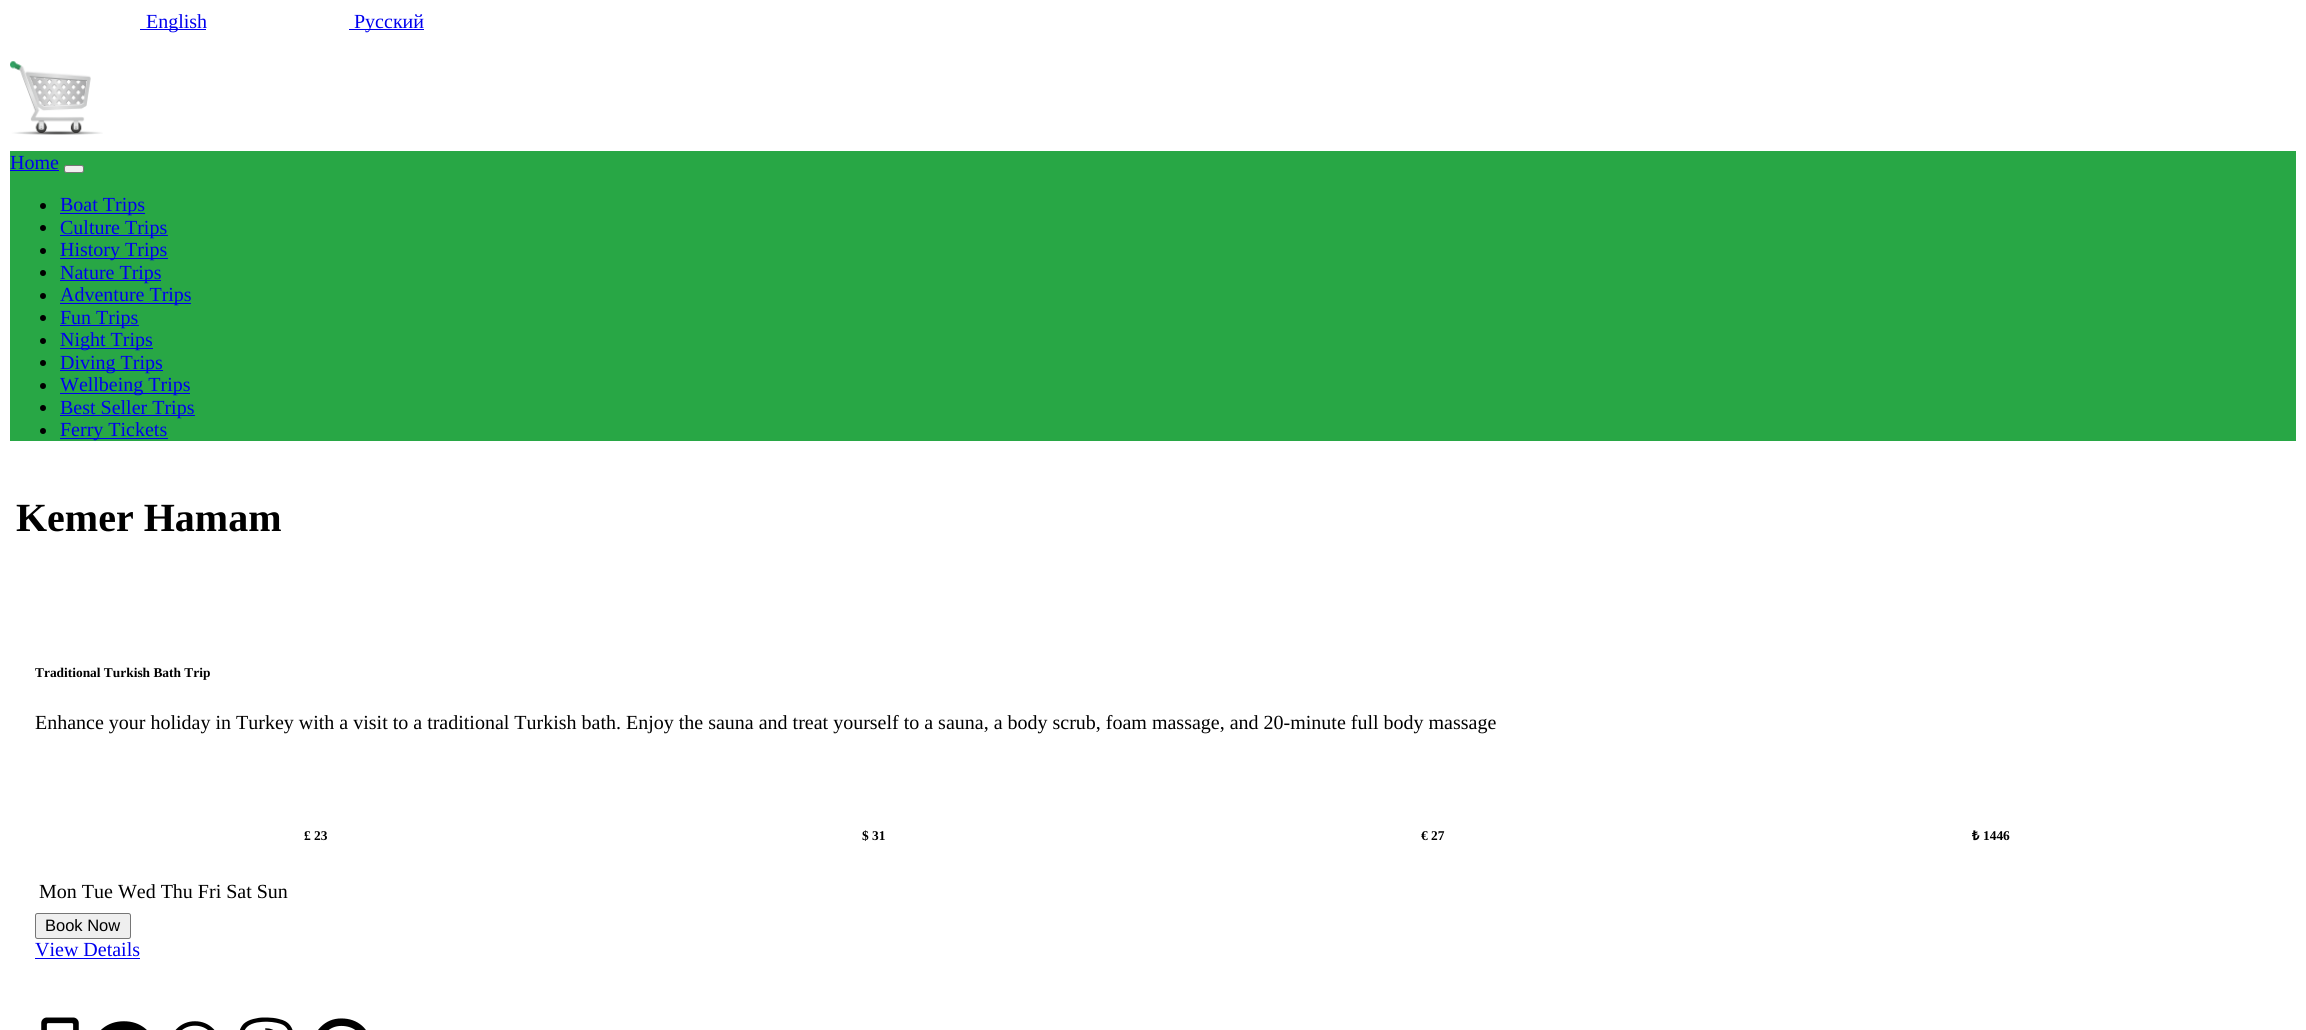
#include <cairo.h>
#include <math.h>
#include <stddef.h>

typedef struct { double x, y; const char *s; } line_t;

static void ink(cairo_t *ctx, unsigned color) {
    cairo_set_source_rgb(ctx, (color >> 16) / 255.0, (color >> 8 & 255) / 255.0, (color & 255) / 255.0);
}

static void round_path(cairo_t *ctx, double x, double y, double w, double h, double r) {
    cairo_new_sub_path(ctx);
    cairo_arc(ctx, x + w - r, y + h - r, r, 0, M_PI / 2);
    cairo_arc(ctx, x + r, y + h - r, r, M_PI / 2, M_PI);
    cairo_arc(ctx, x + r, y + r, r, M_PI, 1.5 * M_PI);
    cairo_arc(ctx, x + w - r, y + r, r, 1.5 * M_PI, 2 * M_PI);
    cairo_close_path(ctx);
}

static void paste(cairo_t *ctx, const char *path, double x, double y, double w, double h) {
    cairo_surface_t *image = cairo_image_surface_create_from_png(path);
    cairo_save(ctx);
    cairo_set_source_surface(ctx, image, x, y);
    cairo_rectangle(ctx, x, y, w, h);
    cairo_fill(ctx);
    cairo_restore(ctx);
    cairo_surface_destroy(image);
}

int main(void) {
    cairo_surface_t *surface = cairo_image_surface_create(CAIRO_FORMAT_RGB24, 2306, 1030);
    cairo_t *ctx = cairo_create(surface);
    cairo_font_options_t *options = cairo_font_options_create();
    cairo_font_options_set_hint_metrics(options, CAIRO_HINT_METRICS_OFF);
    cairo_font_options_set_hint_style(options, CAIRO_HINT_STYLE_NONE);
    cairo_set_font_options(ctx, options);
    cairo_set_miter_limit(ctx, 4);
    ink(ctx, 0xFFFFFF);
    cairo_paint(ctx);
    ink(ctx, 0x0000EE);
    cairo_rectangle(ctx, 140, 29, 66, 1);
    cairo_fill(ctx);
    cairo_select_font_face(ctx, "Liberation Serif", CAIRO_FONT_SLANT_NORMAL, CAIRO_FONT_WEIGHT_NORMAL);
    cairo_set_font_size(ctx, 20);
    cairo_move_to(ctx, 146, 28);
    cairo_show_text(ctx, "English");
    cairo_rectangle(ctx, 349, 29, 75, 1);
    cairo_fill(ctx);
    cairo_move_to(ctx, 354, 28);
    cairo_show_text(ctx, "Pусский");
    paste(ctx, "media/1.png", 10, 61, 93, 74);
    ink(ctx, 0x28A745);
    cairo_rectangle(ctx, 10, 151, 2286, 290);
    cairo_fill(ctx);
    ink(ctx, 0x0000EE);
    cairo_move_to(ctx, 10, 169);
    cairo_show_text(ctx, "Home");
    cairo_rectangle(ctx, 10, 170, 49, 1);
    cairo_fill(ctx);
    ink(ctx, 0xEFEFEF);
    round_path(ctx, 64.5, 165.5, 19, 7, 2);
    cairo_fill_preserve(ctx);
    ink(ctx, 0x767676);
    cairo_set_line_width(ctx, 1);
    cairo_stroke(ctx);
    ink(ctx, 0x000000);
    cairo_arc(ctx, 43, 206, 3, 0, 2 * M_PI);
    cairo_fill(ctx);
    ink(ctx, 0x0000EE);
    cairo_rectangle(ctx, 60, 213, 85, 1);
    cairo_fill(ctx);
    cairo_move_to(ctx, 60, 211);
    cairo_show_text(ctx, "Boat Trips");
    ink(ctx, 0x000000);
    cairo_new_path(ctx);
    cairo_arc(ctx, 43, 228, 3, 0, 2 * M_PI);
    cairo_fill(ctx);
    ink(ctx, 0x0000EE);
    cairo_rectangle(ctx, 60, 235, 108, 1);
    cairo_fill(ctx);
    cairo_move_to(ctx, 60, 234);
    cairo_show_text(ctx, "Culture Trips");
    ink(ctx, 0x000000);
    cairo_new_path(ctx);
    cairo_arc(ctx, 43, 251, 3, 0, 2 * M_PI);
    cairo_fill(ctx);
    ink(ctx, 0x0000EE);
    cairo_rectangle(ctx, 60, 258, 108, 1);
    cairo_fill(ctx);
    cairo_move_to(ctx, 60, 256);
    cairo_show_text(ctx, "History Trips");
    ink(ctx, 0x000000);
    cairo_new_path(ctx);
    cairo_arc(ctx, 43, 273, 3, 0, 2 * M_PI);
    cairo_fill(ctx);
    ink(ctx, 0x0000EE);
    cairo_rectangle(ctx, 60, 280, 101, 1);
    cairo_fill(ctx);
    cairo_move_to(ctx, 60, 279);
    cairo_show_text(ctx, "Nature Trips");
    ink(ctx, 0x000000);
    cairo_new_path(ctx);
    cairo_arc(ctx, 43, 296, 3, 0, 2 * M_PI);
    cairo_fill(ctx);
    ink(ctx, 0x0000EE);
    cairo_rectangle(ctx, 60, 303, 131, 1);
    cairo_fill(ctx);
    cairo_move_to(ctx, 60, 301);
    cairo_show_text(ctx, "Adventure Trips");
    ink(ctx, 0x000000);
    cairo_new_path(ctx);
    cairo_arc(ctx, 43, 318, 3, 0, 2 * M_PI);
    cairo_fill(ctx);
    ink(ctx, 0x0000EE);
    cairo_rectangle(ctx, 60, 325, 79, 1);
    cairo_fill(ctx);
    cairo_move_to(ctx, 60, 324);
    cairo_show_text(ctx, "Fun Trips");
    ink(ctx, 0x000000);
    cairo_new_path(ctx);
    cairo_arc(ctx, 43, 341, 3, 0, 2 * M_PI);
    cairo_fill(ctx);
    ink(ctx, 0x0000EE);
    cairo_rectangle(ctx, 60, 348, 93, 1);
    cairo_fill(ctx);
    cairo_move_to(ctx, 60, 346);
    cairo_show_text(ctx, "Night Trips");
    ink(ctx, 0x000000);
    cairo_new_path(ctx);
    cairo_arc(ctx, 43, 363, 3, 0, 2 * M_PI);
    cairo_fill(ctx);
    ink(ctx, 0x0000EE);
    cairo_rectangle(ctx, 60, 370, 103, 1);
    cairo_fill(ctx);
    cairo_move_to(ctx, 60, 369);
    cairo_show_text(ctx, "Diving Trips");
    ink(ctx, 0x000000);
    cairo_new_path(ctx);
    cairo_arc(ctx, 43, 386, 3, 0, 2 * M_PI);
    cairo_fill(ctx);
    ink(ctx, 0x0000EE);
    cairo_rectangle(ctx, 60, 393, 130, 1);
    cairo_fill(ctx);
    cairo_move_to(ctx, 60, 391);
    cairo_show_text(ctx, "Wellbeing Trips");
    ink(ctx, 0x000000);
    cairo_new_path(ctx);
    cairo_arc(ctx, 43, 408, 3, 0, 2 * M_PI);
    cairo_fill(ctx);
    ink(ctx, 0x0000EE);
    cairo_rectangle(ctx, 60, 415, 135, 1);
    cairo_fill(ctx);
    cairo_move_to(ctx, 60, 414);
    cairo_show_text(ctx, "Best Seller Trips");
    ink(ctx, 0x000000);
    cairo_new_path(ctx);
    cairo_arc(ctx, 43, 431, 3, 0, 2 * M_PI);
    cairo_fill(ctx);
    ink(ctx, 0x0000EE);
    cairo_rectangle(ctx, 60, 438, 108, 1);
    cairo_fill(ctx);
    cairo_move_to(ctx, 60, 436);
    cairo_show_text(ctx, "Ferry Tickets");
    cairo_select_font_face(ctx, "Liberation Serif", CAIRO_FONT_SLANT_NORMAL, CAIRO_FONT_WEIGHT_BOLD);
    cairo_set_font_size(ctx, 40);
    ink(ctx, 0x000000);
    cairo_move_to(ctx, 16, 531);
    cairo_show_text(ctx, "Kemer Hamam");
    cairo_set_font_size(ctx, 13.4);
    cairo_move_to(ctx, 35, 677);
    cairo_show_text(ctx, "Traditional Turkish Bath Trip");
    cairo_select_font_face(ctx, "Liberation Serif", CAIRO_FONT_SLANT_NORMAL, CAIRO_FONT_WEIGHT_NORMAL);
    cairo_set_font_size(ctx, 20);
    cairo_move_to(ctx, 35, 729);
    cairo_show_text(ctx, "Enhance your holiday in Turkey with a visit to a traditional Turkish bath. Enjoy the sauna and treat yourself to a sauna, a body scrub, foam massage, and 20-minute full body massage");
    cairo_select_font_face(ctx, "Liberation Serif", CAIRO_FONT_SLANT_NORMAL, CAIRO_FONT_WEIGHT_BOLD);
    cairo_set_font_size(ctx, 13.4);
    {
        static const line_t items[] = {
            {304, 840, "£ 23"},
            {862, 840, "$ 31"},
            {1421, 840, "€ 27"},
        };
        for (size_t i = 0; i < sizeof items / sizeof *items; i++) {
            cairo_move_to(ctx, items[i].x, items[i].y);
            cairo_show_text(ctx, items[i].s);
        }
    }
    cairo_select_font_face(ctx, "Noto Sans", CAIRO_FONT_SLANT_NORMAL, CAIRO_FONT_WEIGHT_BOLD);
    cairo_move_to(ctx, 1972, 840);
    cairo_show_text(ctx, "₺");
    cairo_select_font_face(ctx, "Liberation Serif", CAIRO_FONT_SLANT_NORMAL, CAIRO_FONT_WEIGHT_BOLD);
    cairo_move_to(ctx, 1983, 840);
    cairo_show_text(ctx, "1446");
    cairo_select_font_face(ctx, "Liberation Serif", CAIRO_FONT_SLANT_NORMAL, CAIRO_FONT_WEIGHT_NORMAL);
    cairo_set_font_size(ctx, 20);
    cairo_move_to(ctx, 39, 898);
    cairo_show_text(ctx, "Mon Tue Wed Thu Fri Sat Sun");
    ink(ctx, 0xEFEFEF);
    round_path(ctx, 35.5, 913.5, 95, 25, 2);
    cairo_fill_preserve(ctx);
    ink(ctx, 0x767676);
    cairo_stroke(ctx);
    cairo_select_font_face(ctx, "Liberation Sans", CAIRO_FONT_SLANT_NORMAL, CAIRO_FONT_WEIGHT_NORMAL);
    cairo_set_font_size(ctx, 16.5);
    ink(ctx, 0x000000);
    cairo_move_to(ctx, 45, 931);
    cairo_show_text(ctx, "Book Now");
    cairo_select_font_face(ctx, "Liberation Serif", CAIRO_FONT_SLANT_NORMAL, CAIRO_FONT_WEIGHT_NORMAL);
    cairo_set_font_size(ctx, 20);
    ink(ctx, 0x0000EE);
    cairo_move_to(ctx, 35, 956);
    cairo_show_text(ctx, "View Details");
    cairo_rectangle(ctx, 35, 958, 105, 1);
    cairo_fill(ctx);
    paste(ctx, "media/2.png", 41, 1017, 38, 13);
    paste(ctx, "media/3.png", 101, 1021, 46, 9);
    paste(ctx, "media/4.png", 175, 1021, 40, 9);
    paste(ctx, "media/5.png", 240, 1017, 53, 13);
    paste(ctx, "media/6.png", 318, 1018, 48, 12);
    cairo_surface_write_to_png(surface, "image.png");
    cairo_font_options_destroy(options);
    cairo_destroy(ctx);
    cairo_surface_destroy(surface);
    return 0;
}
